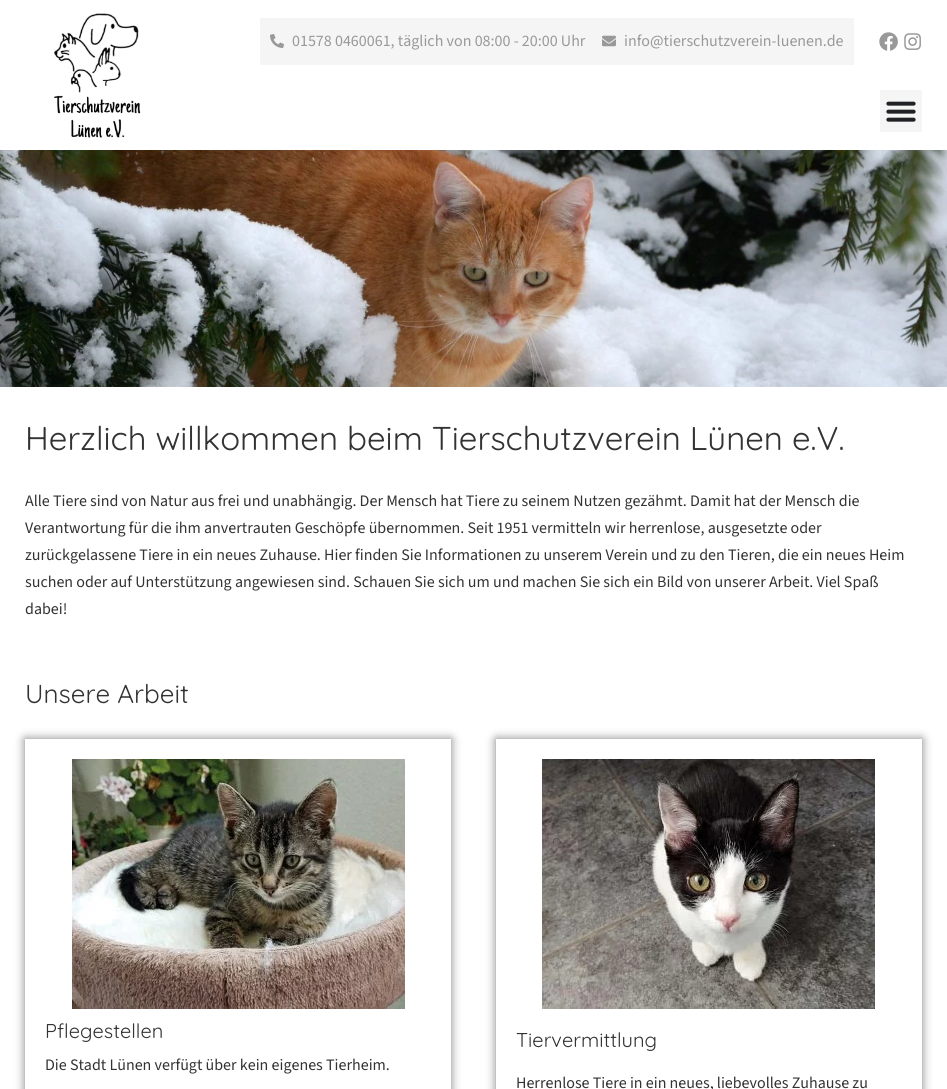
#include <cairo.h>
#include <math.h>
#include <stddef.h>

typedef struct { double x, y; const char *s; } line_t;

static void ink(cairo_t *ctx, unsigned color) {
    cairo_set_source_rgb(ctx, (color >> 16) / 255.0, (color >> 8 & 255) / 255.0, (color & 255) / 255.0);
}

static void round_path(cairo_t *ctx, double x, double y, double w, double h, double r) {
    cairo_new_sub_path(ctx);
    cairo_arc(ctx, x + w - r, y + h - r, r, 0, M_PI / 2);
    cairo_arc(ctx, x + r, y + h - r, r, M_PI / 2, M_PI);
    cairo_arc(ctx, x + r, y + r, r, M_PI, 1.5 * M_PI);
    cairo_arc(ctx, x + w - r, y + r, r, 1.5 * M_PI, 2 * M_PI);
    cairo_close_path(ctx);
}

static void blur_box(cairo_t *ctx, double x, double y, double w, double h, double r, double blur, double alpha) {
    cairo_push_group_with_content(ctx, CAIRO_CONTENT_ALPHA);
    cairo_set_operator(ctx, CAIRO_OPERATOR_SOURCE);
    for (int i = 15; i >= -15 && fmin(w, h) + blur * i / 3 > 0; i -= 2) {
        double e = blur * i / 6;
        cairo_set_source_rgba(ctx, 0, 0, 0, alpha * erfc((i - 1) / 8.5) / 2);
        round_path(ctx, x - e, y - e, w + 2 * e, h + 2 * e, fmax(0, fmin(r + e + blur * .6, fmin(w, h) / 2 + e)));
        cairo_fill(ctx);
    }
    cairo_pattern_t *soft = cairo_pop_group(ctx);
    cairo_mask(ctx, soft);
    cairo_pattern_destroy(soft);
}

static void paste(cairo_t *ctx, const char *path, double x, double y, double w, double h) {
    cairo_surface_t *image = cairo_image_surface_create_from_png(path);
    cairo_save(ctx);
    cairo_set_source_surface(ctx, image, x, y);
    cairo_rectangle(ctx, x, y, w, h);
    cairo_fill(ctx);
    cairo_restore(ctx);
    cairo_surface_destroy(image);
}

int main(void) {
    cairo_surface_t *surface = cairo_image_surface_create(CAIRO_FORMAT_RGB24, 947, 1089);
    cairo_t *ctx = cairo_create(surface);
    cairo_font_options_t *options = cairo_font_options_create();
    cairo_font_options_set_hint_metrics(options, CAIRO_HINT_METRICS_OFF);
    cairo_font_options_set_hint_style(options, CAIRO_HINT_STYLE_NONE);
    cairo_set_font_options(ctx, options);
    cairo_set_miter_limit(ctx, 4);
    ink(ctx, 0xFFFFFF);
    cairo_paint(ctx);
    paste(ctx, "media/1.png", 54, 13, 87, 125);
    ink(ctx, 0xF5F5F5);
    cairo_rectangle(ctx, 260, 18, 594, 47);
    cairo_fill(ctx);
    paste(ctx, "media/2.png", 270, 34, 14, 14);
    cairo_select_font_face(ctx, "Source Sans 3 ExtraLight", CAIRO_FONT_SLANT_NORMAL, CAIRO_FONT_WEIGHT_NORMAL);
    cairo_set_font_size(ctx, 16);
    ink(ctx, 0x999999);
    cairo_move_to(ctx, 292, 46);
    cairo_show_text(ctx, "01578 0460061, täglich von 08:00 - 20:00 Uhr");
    paste(ctx, "media/3.png", 602, 35, 14, 12);
    cairo_move_to(ctx, 624, 46);
    cairo_show_text(ctx, "info@tierschutzverein-luenen.de");
    paste(ctx, "media/4.png", 879, 32, 19, 19);
    paste(ctx, "media/5.png", 904, 33, 17, 17);
    ink(ctx, 0xF5F5F5);
    cairo_rectangle(ctx, 880, 90, 42, 42);
    cairo_fill(ctx);
    paste(ctx, "media/6.png", 886, 101, 30, 21);
    paste(ctx, "media/7.png", 0, 150, 947, 237);
    cairo_select_font_face(ctx, "Quicksand Light", CAIRO_FONT_SLANT_NORMAL, CAIRO_FONT_WEIGHT_NORMAL);
    cairo_set_font_size(ctx, 33);
    ink(ctx, 0x333333);
    cairo_move_to(ctx, 25, 450);
    cairo_show_text(ctx, "Herzlich willkommen beim Tierschutzverein Lünen e.V.");
    cairo_select_font_face(ctx, "Source Sans 3 ExtraLight", CAIRO_FONT_SLANT_NORMAL, CAIRO_FONT_WEIGHT_NORMAL);
    cairo_set_font_size(ctx, 16);
    {
        static const line_t items[] = {
            {25, 506, "Alle Tiere sind von Natur aus frei und unabhängig. Der Mensch hat Tiere zu seinem Nutzen gezähmt. Damit hat der Mensch die"},
            {25, 533, "Verantwortung für die ihm anvertrauten Geschöpfe übernommen. Seit 1951 vermitteln wir herrenlose, ausgesetzte oder"},
            {25, 560, "zurückgelassene Tiere in ein neues Zuhause. Hier finden Sie Informationen zu unserem Verein und zu den Tieren, die ein neues Heim"},
            {25, 587, "suchen oder auf Unterstützung angewiesen sind. Schauen Sie sich um und machen Sie sich ein Bild von unserer Arbeit. Viel Spaß"},
            {25, 614, "dabei!"},
        };
        for (size_t i = 0; i < sizeof items / sizeof *items; i++) {
            cairo_move_to(ctx, items[i].x, items[i].y);
            cairo_show_text(ctx, items[i].s);
        }
    }
    cairo_select_font_face(ctx, "Quicksand Light", CAIRO_FONT_SLANT_NORMAL, CAIRO_FONT_WEIGHT_NORMAL);
    cairo_set_font_size(ctx, 26);
    cairo_move_to(ctx, 25, 703);
    cairo_show_text(ctx, "Unsere Arbeit");
    cairo_save(ctx);
    cairo_set_fill_rule(ctx, CAIRO_FILL_RULE_EVEN_ODD);
    cairo_new_path(ctx);
    cairo_move_to(ctx, 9, 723);
    cairo_line_to(ctx, 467, 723);
    cairo_line_to(ctx, 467, 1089);
    cairo_line_to(ctx, 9, 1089);
    cairo_close_path(ctx);
    cairo_move_to(ctx, 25, 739);
    cairo_line_to(ctx, 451, 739);
    cairo_line_to(ctx, 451, 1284);
    cairo_line_to(ctx, 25, 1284);
    cairo_close_path(ctx);
    cairo_clip(ctx);
    ink(ctx, 0x000000);
    blur_box(ctx, 25, 739, 426, 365, 0, 5, 0.5);
    cairo_restore(ctx);
    paste(ctx, "media/8.png", 72, 759, 333, 250);
    cairo_set_font_size(ctx, 20);
    cairo_move_to(ctx, 45, 1038);
    cairo_show_text(ctx, "Pflegestellen");
    cairo_select_font_face(ctx, "Source Sans 3 ExtraLight", CAIRO_FONT_SLANT_NORMAL, CAIRO_FONT_WEIGHT_NORMAL);
    cairo_set_font_size(ctx, 16);
    cairo_move_to(ctx, 45, 1070);
    cairo_show_text(ctx, "Die Stadt Lünen verfügt über kein eigenes Tierheim.");
    cairo_save(ctx);
    cairo_set_fill_rule(ctx, CAIRO_FILL_RULE_EVEN_ODD);
    cairo_new_path(ctx);
    cairo_move_to(ctx, 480, 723);
    cairo_line_to(ctx, 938, 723);
    cairo_line_to(ctx, 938, 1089);
    cairo_line_to(ctx, 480, 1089);
    cairo_close_path(ctx);
    cairo_move_to(ctx, 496, 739);
    cairo_line_to(ctx, 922, 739);
    cairo_line_to(ctx, 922, 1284);
    cairo_line_to(ctx, 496, 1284);
    cairo_close_path(ctx);
    cairo_clip(ctx);
    ink(ctx, 0x000000);
    blur_box(ctx, 496, 739, 426, 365, 0, 5, 0.5);
    cairo_restore(ctx);
    paste(ctx, "media/9.png", 542, 759, 333, 250);
    cairo_select_font_face(ctx, "Quicksand Light", CAIRO_FONT_SLANT_NORMAL, CAIRO_FONT_WEIGHT_NORMAL);
    cairo_set_font_size(ctx, 20);
    cairo_move_to(ctx, 516, 1047);
    cairo_show_text(ctx, "Tiervermittlung");
    cairo_select_font_face(ctx, "Source Sans 3 ExtraLight", CAIRO_FONT_SLANT_NORMAL, CAIRO_FONT_WEIGHT_NORMAL);
    cairo_set_font_size(ctx, 16);
    cairo_move_to(ctx, 516, 1088);
    cairo_show_text(ctx, "Herrenlose Tiere in ein neues, liebevolles Zuhause zu");
    cairo_surface_write_to_png(surface, "image.png");
    cairo_font_options_destroy(options);
    cairo_destroy(ctx);
    cairo_surface_destroy(surface);
    return 0;
}
